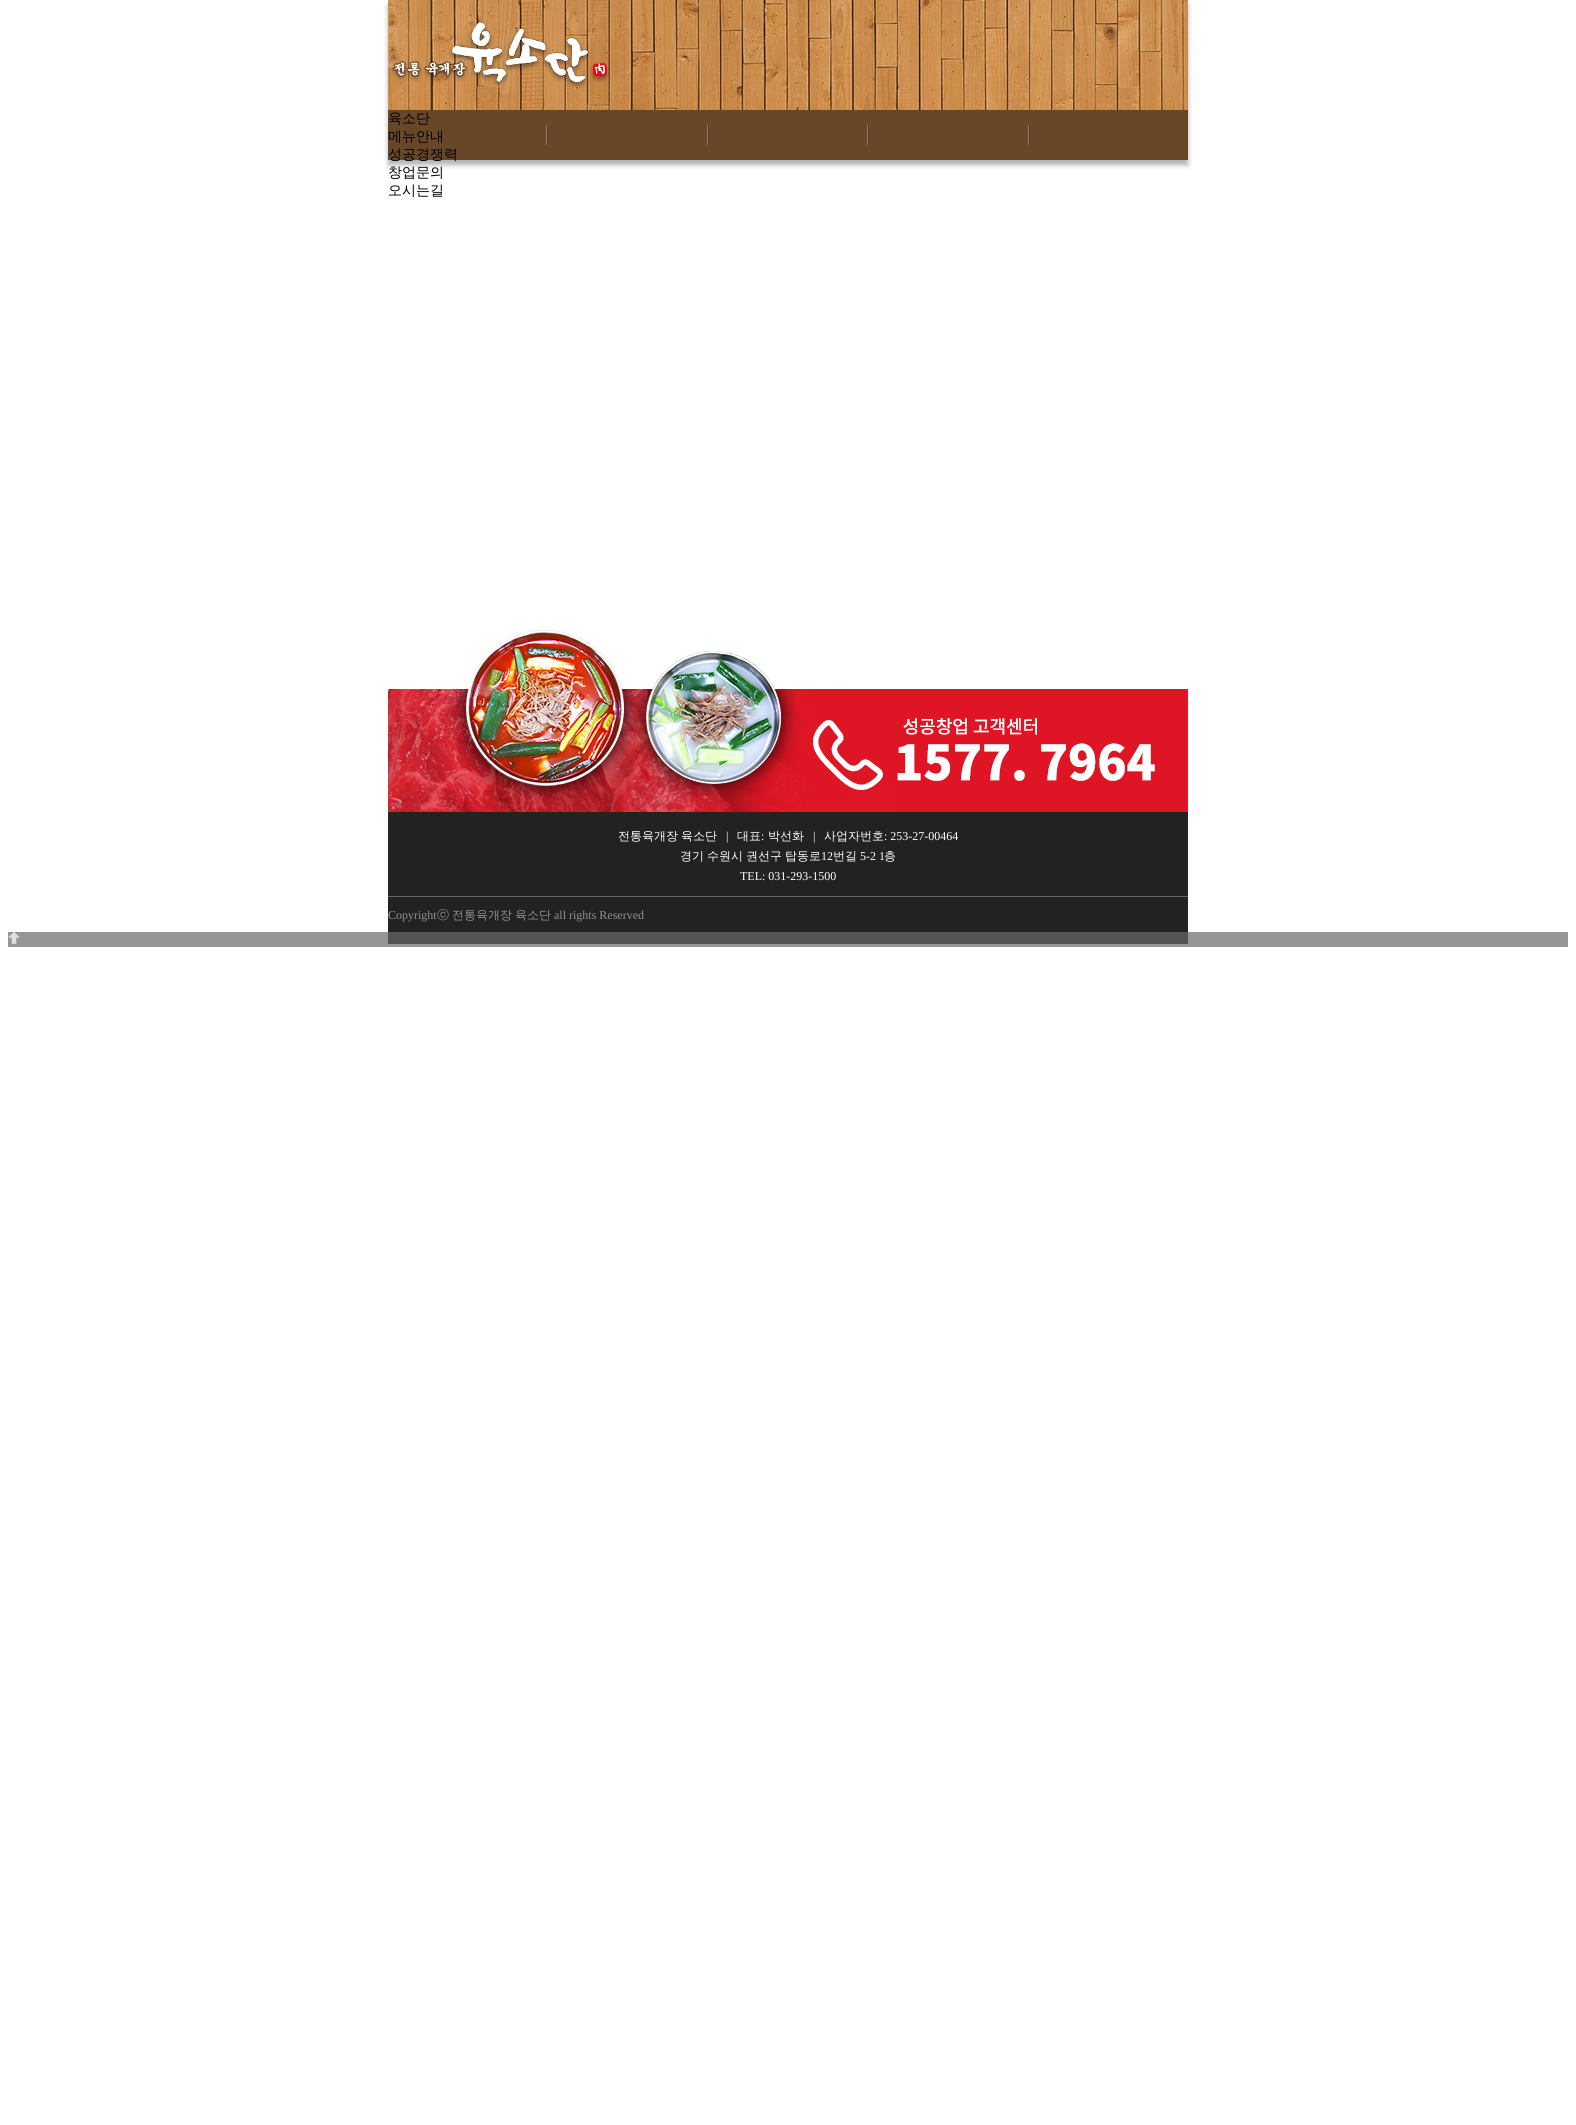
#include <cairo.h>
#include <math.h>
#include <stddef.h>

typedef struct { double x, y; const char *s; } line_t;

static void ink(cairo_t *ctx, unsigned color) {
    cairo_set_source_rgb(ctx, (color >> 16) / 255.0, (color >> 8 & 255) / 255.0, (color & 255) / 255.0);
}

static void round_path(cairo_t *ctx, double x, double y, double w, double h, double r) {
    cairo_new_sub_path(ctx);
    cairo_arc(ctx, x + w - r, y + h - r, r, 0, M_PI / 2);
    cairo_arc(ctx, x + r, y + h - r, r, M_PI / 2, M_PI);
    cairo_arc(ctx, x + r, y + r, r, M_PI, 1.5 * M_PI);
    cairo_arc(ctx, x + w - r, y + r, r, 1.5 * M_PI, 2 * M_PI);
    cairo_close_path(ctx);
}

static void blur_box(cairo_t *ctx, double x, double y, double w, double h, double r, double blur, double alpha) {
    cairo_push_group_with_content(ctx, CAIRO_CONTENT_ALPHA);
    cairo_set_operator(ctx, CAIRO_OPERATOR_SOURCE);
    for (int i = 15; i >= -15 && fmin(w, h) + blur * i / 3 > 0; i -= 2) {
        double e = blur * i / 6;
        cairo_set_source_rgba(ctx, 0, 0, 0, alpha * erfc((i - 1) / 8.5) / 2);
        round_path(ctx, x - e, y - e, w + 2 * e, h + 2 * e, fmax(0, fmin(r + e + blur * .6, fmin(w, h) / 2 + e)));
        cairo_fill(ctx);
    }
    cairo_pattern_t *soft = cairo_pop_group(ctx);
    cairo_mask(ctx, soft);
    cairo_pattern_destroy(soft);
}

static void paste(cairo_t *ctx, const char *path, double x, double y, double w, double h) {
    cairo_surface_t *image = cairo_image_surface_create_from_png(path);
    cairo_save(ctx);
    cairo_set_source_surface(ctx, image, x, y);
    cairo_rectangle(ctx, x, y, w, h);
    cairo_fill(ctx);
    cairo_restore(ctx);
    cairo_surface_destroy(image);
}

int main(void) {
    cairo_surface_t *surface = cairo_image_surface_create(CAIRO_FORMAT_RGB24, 1576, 2125);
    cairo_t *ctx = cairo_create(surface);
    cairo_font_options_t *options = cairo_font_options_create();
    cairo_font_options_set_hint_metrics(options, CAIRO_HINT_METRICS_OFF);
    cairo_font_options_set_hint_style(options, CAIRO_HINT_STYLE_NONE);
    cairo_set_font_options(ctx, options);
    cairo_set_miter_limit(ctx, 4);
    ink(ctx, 0xFFFFFF);
    cairo_paint(ctx);
    ink(ctx, 0x969696);
    cairo_rectangle(ctx, 8, 932, 1560, 15);
    cairo_fill(ctx);
    ink(ctx, 0x000000);
    blur_box(ctx, 388, 5, 800, 160, 0, 2.5, 0.3);
    paste(ctx, "media/1.png", 388, 0, 800, 110);
    paste(ctx, "media/2.png", 388, 110, 800, 50);
    paste(ctx, "media/3.png", 391, 21, 220, 68);
    cairo_select_font_face(ctx, "WenQuanYi Zen Hei Medium", CAIRO_FONT_SLANT_NORMAL, CAIRO_FONT_WEIGHT_NORMAL);
    cairo_set_font_size(ctx, 14);
    ink(ctx, 0x000000);
    {
        static const line_t items[] = {
            {388, 123, "육소단"},
            {388, 141, "메뉴안내"},
            {388, 159, "성공경쟁력"},
            {388, 177, "창업문의"},
            {388, 195, "오시는길"},
        };
        for (size_t i = 0; i < sizeof items / sizeof *items; i++) {
            cairo_move_to(ctx, items[i].x, items[i].y);
            cairo_show_text(ctx, items[i].s);
        }
    }
    ink(ctx, 0x222222);
    cairo_rectangle(ctx, 388, 812, 800, 120);
    cairo_fill(ctx);
    ink(ctx, 0x545454);
    cairo_rectangle(ctx, 388, 932, 800, 12);
    cairo_fill(ctx);
    paste(ctx, "media/4.png", 388, 622, 800, 190);
    cairo_set_font_size(ctx, 12);
    ink(ctx, 0xFFFFFF);
    cairo_move_to(ctx, 618, 840);
    cairo_show_text(ctx, "전통육개장");
    cairo_move_to(ctx, 681, 840);
    cairo_show_text(ctx, "육소단");
    cairo_select_font_face(ctx, "Liberation Serif", CAIRO_FONT_SLANT_NORMAL, CAIRO_FONT_WEIGHT_NORMAL);
    cairo_move_to(ctx, 726, 840);
    cairo_show_text(ctx, "|");
    cairo_select_font_face(ctx, "WenQuanYi Zen Hei Medium", CAIRO_FONT_SLANT_NORMAL, CAIRO_FONT_WEIGHT_NORMAL);
    cairo_move_to(ctx, 737, 840);
    cairo_show_text(ctx, "대표");
    cairo_select_font_face(ctx, "Liberation Serif", CAIRO_FONT_SLANT_NORMAL, CAIRO_FONT_WEIGHT_NORMAL);
    cairo_move_to(ctx, 761, 840);
    cairo_show_text(ctx, ":");
    cairo_select_font_face(ctx, "WenQuanYi Zen Hei Medium", CAIRO_FONT_SLANT_NORMAL, CAIRO_FONT_WEIGHT_NORMAL);
    cairo_move_to(ctx, 768, 840);
    cairo_show_text(ctx, "박선화");
    cairo_select_font_face(ctx, "Liberation Serif", CAIRO_FONT_SLANT_NORMAL, CAIRO_FONT_WEIGHT_NORMAL);
    cairo_move_to(ctx, 813, 840);
    cairo_show_text(ctx, "|");
    cairo_select_font_face(ctx, "WenQuanYi Zen Hei Medium", CAIRO_FONT_SLANT_NORMAL, CAIRO_FONT_WEIGHT_NORMAL);
    cairo_move_to(ctx, 824, 840);
    cairo_show_text(ctx, "사업자번호");
    cairo_select_font_face(ctx, "Liberation Serif", CAIRO_FONT_SLANT_NORMAL, CAIRO_FONT_WEIGHT_NORMAL);
    cairo_move_to(ctx, 884, 840);
    cairo_show_text(ctx, ": 253-27-00464");
    cairo_select_font_face(ctx, "WenQuanYi Zen Hei Medium", CAIRO_FONT_SLANT_NORMAL, CAIRO_FONT_WEIGHT_NORMAL);
    {
        static const line_t items[] = {
            {680, 860, "경기"},
            {707, 860, "수원시"},
            {746, 860, "권선구"},
            {785, 860, "탑동로"},
        };
        for (size_t i = 0; i < sizeof items / sizeof *items; i++) {
            cairo_move_to(ctx, items[i].x, items[i].y);
            cairo_show_text(ctx, items[i].s);
        }
    }
    cairo_select_font_face(ctx, "Liberation Serif", CAIRO_FONT_SLANT_NORMAL, CAIRO_FONT_WEIGHT_NORMAL);
    cairo_move_to(ctx, 821, 860);
    cairo_show_text(ctx, "12");
    cairo_select_font_face(ctx, "WenQuanYi Zen Hei Medium", CAIRO_FONT_SLANT_NORMAL, CAIRO_FONT_WEIGHT_NORMAL);
    cairo_move_to(ctx, 833, 860);
    cairo_show_text(ctx, "번길");
    cairo_select_font_face(ctx, "Liberation Serif", CAIRO_FONT_SLANT_NORMAL, CAIRO_FONT_WEIGHT_NORMAL);
    cairo_move_to(ctx, 860, 860);
    cairo_show_text(ctx, "5-2 1");
    cairo_select_font_face(ctx, "WenQuanYi Zen Hei Medium", CAIRO_FONT_SLANT_NORMAL, CAIRO_FONT_WEIGHT_NORMAL);
    cairo_move_to(ctx, 884, 860);
    cairo_show_text(ctx, "층");
    cairo_select_font_face(ctx, "Liberation Serif", CAIRO_FONT_SLANT_NORMAL, CAIRO_FONT_WEIGHT_NORMAL);
    cairo_move_to(ctx, 740, 880);
    cairo_show_text(ctx, "TEL: 031-293-1500");
    ink(ctx, 0x646464);
    cairo_rectangle(ctx, 388, 896, 800, 1);
    cairo_fill(ctx);
    ink(ctx, 0x919191);
    cairo_move_to(ctx, 388, 919);
    cairo_show_text(ctx, "Copyright");
    cairo_select_font_face(ctx, "WenQuanYi Zen Hei Medium", CAIRO_FONT_SLANT_NORMAL, CAIRO_FONT_WEIGHT_NORMAL);
    {
        static const line_t items[] = {
            {437, 919, "ⓒ"},
            {452, 919, "전통육개장"},
            {515, 919, "육소단"},
        };
        for (size_t i = 0; i < sizeof items / sizeof *items; i++) {
            cairo_move_to(ctx, items[i].x, items[i].y);
            cairo_show_text(ctx, items[i].s);
        }
    }
    cairo_select_font_face(ctx, "Liberation Serif", CAIRO_FONT_SLANT_NORMAL, CAIRO_FONT_WEIGHT_NORMAL);
    cairo_move_to(ctx, 554, 919);
    cairo_show_text(ctx, "all rights Reserved");
    paste(ctx, "media/5.png", 8, 932, 12, 12);
    cairo_surface_write_to_png(surface, "image.png");
    cairo_font_options_destroy(options);
    cairo_destroy(ctx);
    cairo_surface_destroy(surface);
    return 0;
}
